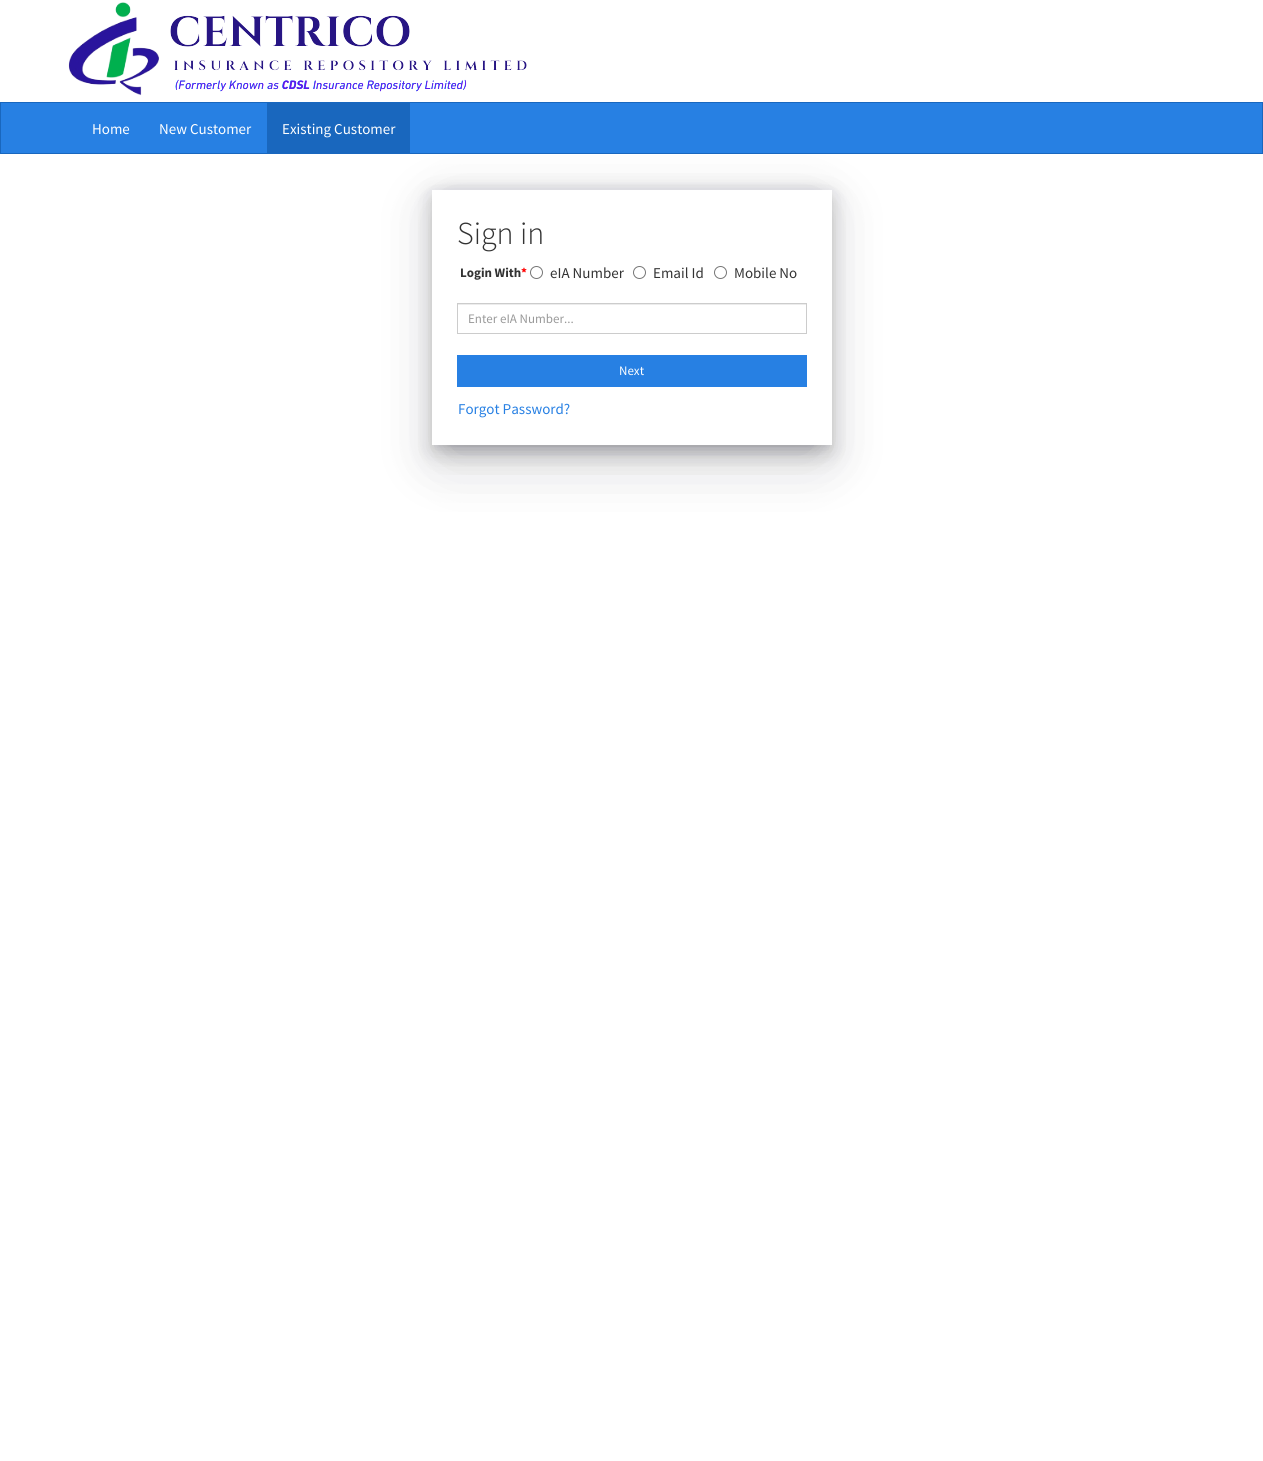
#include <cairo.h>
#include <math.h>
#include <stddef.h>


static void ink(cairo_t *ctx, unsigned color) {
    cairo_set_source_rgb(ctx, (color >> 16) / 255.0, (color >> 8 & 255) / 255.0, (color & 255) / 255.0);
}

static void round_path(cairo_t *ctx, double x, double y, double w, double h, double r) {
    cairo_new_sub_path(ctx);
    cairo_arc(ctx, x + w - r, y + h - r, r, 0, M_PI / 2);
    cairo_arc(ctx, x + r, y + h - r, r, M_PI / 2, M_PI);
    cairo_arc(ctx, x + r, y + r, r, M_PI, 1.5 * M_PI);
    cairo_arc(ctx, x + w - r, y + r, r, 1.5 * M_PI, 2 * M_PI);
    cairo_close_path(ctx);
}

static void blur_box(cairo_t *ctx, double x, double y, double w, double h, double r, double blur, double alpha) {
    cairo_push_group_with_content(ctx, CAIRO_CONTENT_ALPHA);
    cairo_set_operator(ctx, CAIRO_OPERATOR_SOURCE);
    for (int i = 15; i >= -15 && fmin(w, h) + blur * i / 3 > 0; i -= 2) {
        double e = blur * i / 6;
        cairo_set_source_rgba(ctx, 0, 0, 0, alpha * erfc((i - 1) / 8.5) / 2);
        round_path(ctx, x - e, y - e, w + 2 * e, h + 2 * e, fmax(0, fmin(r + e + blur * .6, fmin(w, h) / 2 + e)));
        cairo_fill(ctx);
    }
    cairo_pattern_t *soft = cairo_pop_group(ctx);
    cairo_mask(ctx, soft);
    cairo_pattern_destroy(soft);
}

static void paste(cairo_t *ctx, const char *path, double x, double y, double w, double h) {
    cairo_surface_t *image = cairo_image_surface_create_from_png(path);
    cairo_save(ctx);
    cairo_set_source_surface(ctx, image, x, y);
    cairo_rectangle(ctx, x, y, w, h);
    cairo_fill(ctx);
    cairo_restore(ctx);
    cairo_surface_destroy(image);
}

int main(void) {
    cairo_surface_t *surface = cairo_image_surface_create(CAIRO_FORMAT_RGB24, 1263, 1461);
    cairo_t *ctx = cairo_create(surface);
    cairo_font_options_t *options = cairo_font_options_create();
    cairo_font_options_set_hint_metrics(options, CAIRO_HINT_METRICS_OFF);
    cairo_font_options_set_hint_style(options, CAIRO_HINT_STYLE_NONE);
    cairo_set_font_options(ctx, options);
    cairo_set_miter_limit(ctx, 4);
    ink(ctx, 0xFFFFFF);
    cairo_paint(ctx);
    paste(ctx, "media/1.png", 68, 2, 459, 94);
    ink(ctx, 0x11111A);
    blur_box(ctx, 442, 206, 380, 255, 10, 28, 0.1);
    ink(ctx, 0x2780E3);
    cairo_rectangle(ctx, 0.5, 102.5, 1262, 51);
    cairo_fill_preserve(ctx);
    ink(ctx, 0x1967BE);
    cairo_set_line_width(ctx, 1);
    cairo_stroke(ctx);
    cairo_select_font_face(ctx, "Source Sans Pro", CAIRO_FONT_SLANT_NORMAL, CAIRO_FONT_WEIGHT_NORMAL);
    cairo_set_font_size(ctx, 15);
    ink(ctx, 0xFFFFFF);
    cairo_move_to(ctx, 92, 134);
    cairo_show_text(ctx, "Home");
    cairo_move_to(ctx, 159, 134);
    cairo_show_text(ctx, "New Customer");
    ink(ctx, 0x1967BE);
    cairo_rectangle(ctx, 267, 103, 143, 50);
    cairo_fill(ctx);
    ink(ctx, 0xFFFFFF);
    cairo_move_to(ctx, 282, 134);
    cairo_show_text(ctx, "Existing Customer");
    ink(ctx, 0x11111A);
    blur_box(ctx, 432, 206, 400, 255, 0, 28, 0.1);
    blur_box(ctx, 432, 198, 400, 255, 0, 12, 0.1);
    blur_box(ctx, 432, 194, 400, 255, 0, 8, 0.1);
    blur_box(ctx, 442, 198, 380, 255, 10, 12, 0.1);
    blur_box(ctx, 442, 194, 380, 255, 10, 8, 0.1);
    ink(ctx, 0xFFFFFF);
    cairo_rectangle(ctx, 432, 190, 400, 255);
    cairo_fill(ctx);
    cairo_select_font_face(ctx, "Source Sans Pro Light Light", CAIRO_FONT_SLANT_NORMAL, CAIRO_FONT_WEIGHT_NORMAL);
    cairo_set_font_size(ctx, 32);
    ink(ctx, 0x333333);
    cairo_move_to(ctx, 457, 244);
    cairo_show_text(ctx, "Sign in");
    cairo_select_font_face(ctx, "Source Sans Pro", CAIRO_FONT_SLANT_NORMAL, CAIRO_FONT_WEIGHT_BOLD);
    cairo_set_font_size(ctx, 13);
    cairo_move_to(ctx, 460, 277);
    cairo_show_text(ctx, "Login With");
    ink(ctx, 0xFF0000);
    cairo_move_to(ctx, 521, 277);
    cairo_show_text(ctx, "*");
    cairo_new_path(ctx);
    cairo_arc(ctx, 536.5, 272.5, 6, 0, 2 * M_PI);
    ink(ctx, 0x767676);
    cairo_stroke(ctx);
    cairo_select_font_face(ctx, "Source Sans Pro", CAIRO_FONT_SLANT_NORMAL, CAIRO_FONT_WEIGHT_NORMAL);
    cairo_set_font_size(ctx, 15);
    ink(ctx, 0x333333);
    cairo_move_to(ctx, 550, 278);
    cairo_show_text(ctx, "eIA Number");
    cairo_new_path(ctx);
    cairo_arc(ctx, 639.5, 272.5, 6, 0, 2 * M_PI);
    ink(ctx, 0x767676);
    cairo_stroke(ctx);
    ink(ctx, 0x333333);
    cairo_move_to(ctx, 653, 278);
    cairo_show_text(ctx, "Email Id");
    cairo_new_path(ctx);
    cairo_arc(ctx, 720.5, 272.5, 6, 0, 2 * M_PI);
    ink(ctx, 0x767676);
    cairo_stroke(ctx);
    ink(ctx, 0x333333);
    cairo_move_to(ctx, 734, 278);
    cairo_show_text(ctx, "Mobile No");
    ink(ctx, 0xECECEC);
    cairo_rectangle(ctx, 458, 304, 348, 1);
    cairo_fill(ctx);
    cairo_rectangle(ctx, 457.5, 303.5, 349, 30);
    ink(ctx, 0xCCCCCC);
    cairo_stroke(ctx);
    cairo_set_font_size(ctx, 13);
    ink(ctx, 0x999999);
    cairo_move_to(ctx, 468, 323);
    cairo_show_text(ctx, "Enter eIA Number...");
    ink(ctx, 0x2780E3);
    cairo_rectangle(ctx, 457, 355, 350, 32);
    cairo_fill(ctx);
    ink(ctx, 0xFFFFFF);
    cairo_move_to(ctx, 619, 375);
    cairo_show_text(ctx, "Next");
    cairo_set_font_size(ctx, 15);
    ink(ctx, 0x2780E3);
    cairo_move_to(ctx, 458, 414);
    cairo_show_text(ctx, "Forgot Password?");
    cairo_surface_write_to_png(surface, "image.png");
    cairo_font_options_destroy(options);
    cairo_destroy(ctx);
    cairo_surface_destroy(surface);
    return 0;
}
